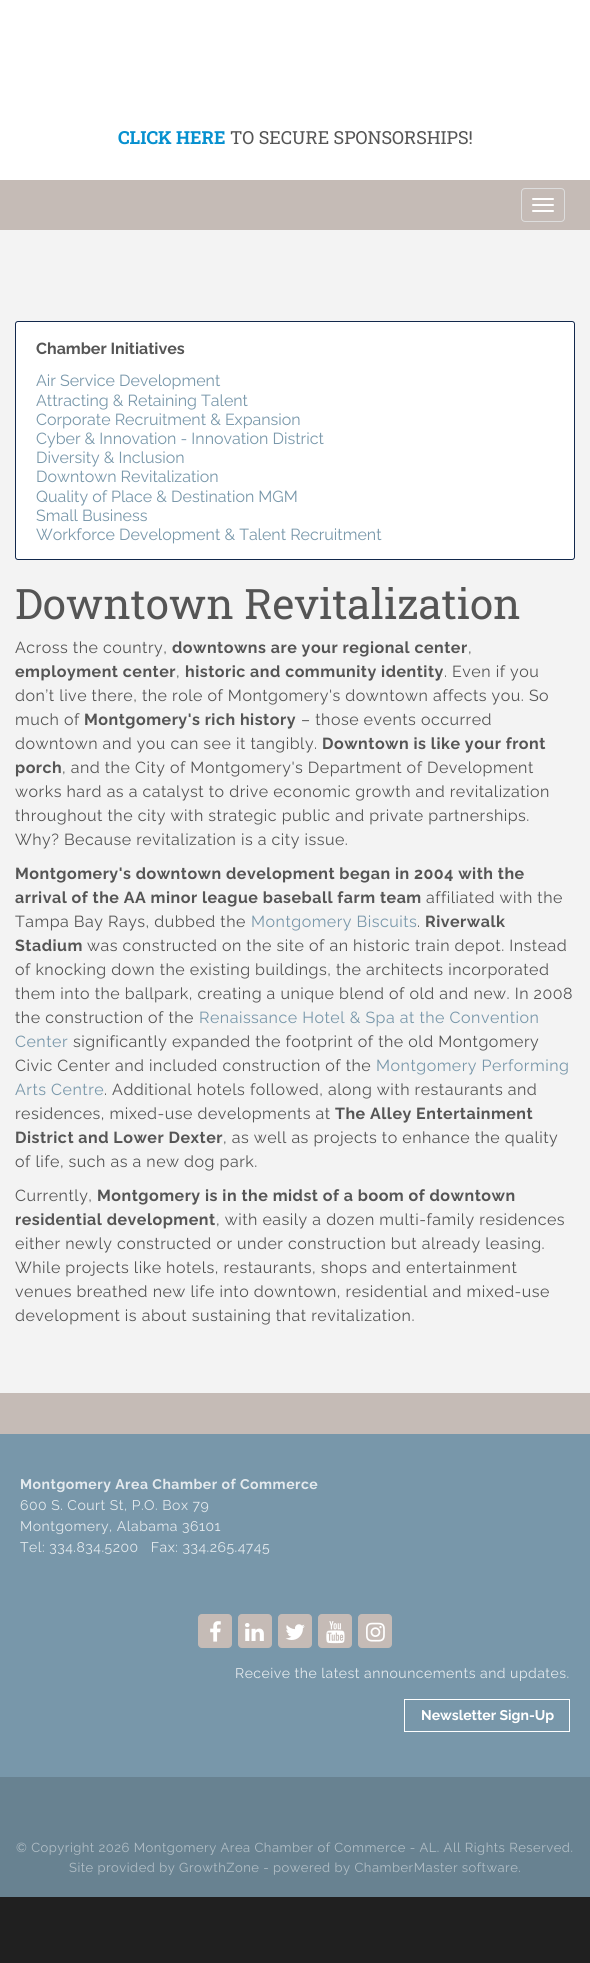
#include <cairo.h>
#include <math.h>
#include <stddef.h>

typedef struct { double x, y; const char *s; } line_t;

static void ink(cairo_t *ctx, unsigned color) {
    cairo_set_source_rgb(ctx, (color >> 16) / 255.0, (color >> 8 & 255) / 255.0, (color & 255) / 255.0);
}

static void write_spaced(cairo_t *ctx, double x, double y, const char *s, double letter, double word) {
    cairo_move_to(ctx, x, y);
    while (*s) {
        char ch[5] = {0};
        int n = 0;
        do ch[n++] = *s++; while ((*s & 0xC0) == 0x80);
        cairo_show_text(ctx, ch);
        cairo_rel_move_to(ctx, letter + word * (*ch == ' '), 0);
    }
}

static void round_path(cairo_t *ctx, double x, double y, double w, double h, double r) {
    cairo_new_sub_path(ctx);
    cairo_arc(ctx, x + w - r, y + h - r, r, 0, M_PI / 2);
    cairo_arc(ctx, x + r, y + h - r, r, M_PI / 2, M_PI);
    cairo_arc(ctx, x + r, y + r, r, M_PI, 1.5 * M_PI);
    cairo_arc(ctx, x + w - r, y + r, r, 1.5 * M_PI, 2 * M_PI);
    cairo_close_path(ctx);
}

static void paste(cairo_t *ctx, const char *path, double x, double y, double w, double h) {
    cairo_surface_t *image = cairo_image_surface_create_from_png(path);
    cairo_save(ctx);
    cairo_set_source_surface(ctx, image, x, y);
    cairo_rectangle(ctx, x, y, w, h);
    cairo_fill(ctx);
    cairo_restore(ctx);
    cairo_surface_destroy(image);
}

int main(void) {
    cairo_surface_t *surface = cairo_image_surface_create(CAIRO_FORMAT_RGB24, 590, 1963);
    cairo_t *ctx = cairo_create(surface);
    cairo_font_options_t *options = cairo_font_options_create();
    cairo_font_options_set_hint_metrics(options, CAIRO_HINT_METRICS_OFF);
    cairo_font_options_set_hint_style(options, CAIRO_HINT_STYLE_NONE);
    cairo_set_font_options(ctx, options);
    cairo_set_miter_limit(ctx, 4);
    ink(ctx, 0x202020);
    cairo_paint(ctx);
    ink(ctx, 0xF3F3F3);
    cairo_rectangle(ctx, 0, 230, 590, 1163);
    cairo_fill(ctx);
    ink(ctx, 0xFFFFFF);
    cairo_rectangle(ctx, 0, 0, 590, 180);
    cairo_fill(ctx);
    cairo_select_font_face(ctx, "Roboto Slab", CAIRO_FONT_SLANT_NORMAL, CAIRO_FONT_WEIGHT_BOLD);
    cairo_set_font_size(ctx, 18);
    ink(ctx, 0x0690CF);
    cairo_move_to(ctx, 118, 144);
    cairo_show_text(ctx, "CLICK HERE");
    cairo_select_font_face(ctx, "Roboto Slab", CAIRO_FONT_SLANT_NORMAL, CAIRO_FONT_WEIGHT_NORMAL);
    ink(ctx, 0x555555);
    cairo_move_to(ctx, 230, 144);
    cairo_show_text(ctx, "TO SECURE SPONSORSHIPS!");
    ink(ctx, 0xC5BBB6);
    cairo_rectangle(ctx, 0, 180, 590, 50);
    cairo_fill(ctx);
    round_path(ctx, 521.5, 188.5, 43, 33, 3.5);
    ink(ctx, 0xDDDDDD);
    cairo_set_line_width(ctx, 1);
    cairo_stroke(ctx);
    ink(ctx, 0xFFFFFF);
    round_path(ctx, 532, 198, 22, 2, 1);
    cairo_fill(ctx);
    round_path(ctx, 532, 204, 22, 2, 1);
    cairo_fill(ctx);
    round_path(ctx, 532, 210, 22, 2, 1);
    cairo_fill(ctx);
    round_path(ctx, 15.5, 321.5, 559, 238, 2.5);
    cairo_fill_preserve(ctx);
    ink(ctx, 0x12284C);
    cairo_stroke(ctx);
    cairo_select_font_face(ctx, "Raleway", CAIRO_FONT_SLANT_NORMAL, CAIRO_FONT_WEIGHT_BOLD);
    cairo_set_font_size(ctx, 16);
    ink(ctx, 0x555555);
    cairo_move_to(ctx, 36, 354);
    cairo_show_text(ctx, "Chamber Initiatives");
    cairo_select_font_face(ctx, "Raleway", CAIRO_FONT_SLANT_NORMAL, CAIRO_FONT_WEIGHT_NORMAL);
    ink(ctx, 0x7897AA);
    {
        static const line_t items[] = {
            {36, 386, "Air Service Development"},
            {36, 406, "Attracting & Retaining Talent"},
            {36, 425, "Corporate Recruitment & Expansion"},
            {36, 444, "Cyber & Innovation - Innovation District"},
            {36, 463, "Diversity & Inclusion"},
            {36, 482, "Downtown Revitalization"},
            {36, 502, "Quality of Place & Destination MGM"},
            {36, 521, "Small Business"},
            {36, 540, "Workforce Development & Talent Recruitment"},
        };
        for (size_t i = 0; i < sizeof items / sizeof *items; i++) {
            cairo_move_to(ctx, items[i].x, items[i].y);
            cairo_show_text(ctx, items[i].s);
        }
    }
    cairo_select_font_face(ctx, "Roboto Slab", CAIRO_FONT_SLANT_NORMAL, CAIRO_FONT_WEIGHT_NORMAL);
    cairo_set_font_size(ctx, 42);
    ink(ctx, 0x555555);
    cairo_move_to(ctx, 15, 619);
    cairo_show_text(ctx, "Downtown Revitalization");
    cairo_select_font_face(ctx, "Raleway", CAIRO_FONT_SLANT_NORMAL, CAIRO_FONT_WEIGHT_NORMAL);
    cairo_set_font_size(ctx, 16);
    write_spaced(ctx, 15, 653, "Across the country,", 0.5, 0);
    cairo_select_font_face(ctx, "Raleway", CAIRO_FONT_SLANT_NORMAL, CAIRO_FONT_WEIGHT_BOLD);
    write_spaced(ctx, 172, 653, "downtowns are your regional center", 0.5, 0);
    cairo_select_font_face(ctx, "Raleway", CAIRO_FONT_SLANT_NORMAL, CAIRO_FONT_WEIGHT_NORMAL);
    write_spaced(ctx, 468, 653, ",", 0.5, 0);
    cairo_select_font_face(ctx, "Raleway", CAIRO_FONT_SLANT_NORMAL, CAIRO_FONT_WEIGHT_BOLD);
    write_spaced(ctx, 15, 677, "employment center", 0.5, 0);
    cairo_select_font_face(ctx, "Raleway", CAIRO_FONT_SLANT_NORMAL, CAIRO_FONT_WEIGHT_NORMAL);
    write_spaced(ctx, 176, 677, ",", 0.5, 0);
    cairo_select_font_face(ctx, "Raleway", CAIRO_FONT_SLANT_NORMAL, CAIRO_FONT_WEIGHT_BOLD);
    write_spaced(ctx, 185, 677, "historic and community identity", 0.5, 0);
    cairo_select_font_face(ctx, "Raleway", CAIRO_FONT_SLANT_NORMAL, CAIRO_FONT_WEIGHT_NORMAL);
    {
        static const line_t items[] = {
            {444, 677, ". Even if you"},
            {15, 701, "don’t live there, the role of Montgomery's downtown affects you. So"},
            {15, 725, "much of"},
        };
        for (size_t i = 0; i < sizeof items / sizeof *items; i++) {
            write_spaced(ctx, items[i].x, items[i].y, items[i].s, 0.5, 0);
        }
    }
    cairo_select_font_face(ctx, "Raleway", CAIRO_FONT_SLANT_NORMAL, CAIRO_FONT_WEIGHT_BOLD);
    write_spaced(ctx, 84, 725, "Montgomery's rich history", 0.5, 0);
    cairo_select_font_face(ctx, "Raleway", CAIRO_FONT_SLANT_NORMAL, CAIRO_FONT_WEIGHT_NORMAL);
    write_spaced(ctx, 301, 725, "– those events occurred", 0.5, 0);
    write_spaced(ctx, 15, 749, "downtown and you can see it tangibly.", 0.5, 0);
    cairo_select_font_face(ctx, "Raleway", CAIRO_FONT_SLANT_NORMAL, CAIRO_FONT_WEIGHT_BOLD);
    write_spaced(ctx, 322, 749, "Downtown is like your front", 0.5, 0);
    write_spaced(ctx, 15, 773, "porch", 0.5, 0);
    cairo_select_font_face(ctx, "Raleway", CAIRO_FONT_SLANT_NORMAL, CAIRO_FONT_WEIGHT_NORMAL);
    {
        static const line_t items[] = {
            {62, 773, ", and the City of Montgomery's Department of Development"},
            {15, 797, "works hard as a catalyst to drive economic growth and revitalization"},
            {15, 821, "throughout the city with strategic public and private partnerships."},
            {15, 845, "Why? Because revitalization is a city issue."},
        };
        for (size_t i = 0; i < sizeof items / sizeof *items; i++) {
            write_spaced(ctx, items[i].x, items[i].y, items[i].s, 0.5, 0);
        }
    }
    cairo_select_font_face(ctx, "Raleway", CAIRO_FONT_SLANT_NORMAL, CAIRO_FONT_WEIGHT_BOLD);
    write_spaced(ctx, 15, 879, "Montgomery's downtown development began in 2004 with the", 0.5, 0);
    write_spaced(ctx, 15, 903, "arrival of the AA minor league baseball farm team", 0.5, 0);
    cairo_select_font_face(ctx, "Raleway", CAIRO_FONT_SLANT_NORMAL, CAIRO_FONT_WEIGHT_NORMAL);
    write_spaced(ctx, 426, 903, "affiliated with the", 0.5, 0);
    write_spaced(ctx, 15, 927, "Tampa Bay Rays, dubbed the", 0.5, 0);
    ink(ctx, 0x7897AA);
    write_spaced(ctx, 251, 927, "Montgomery Biscuits", 0.5, 0);
    ink(ctx, 0x555555);
    write_spaced(ctx, 417, 927, ".", 0.5, 0);
    cairo_select_font_face(ctx, "Raleway", CAIRO_FONT_SLANT_NORMAL, CAIRO_FONT_WEIGHT_BOLD);
    write_spaced(ctx, 425, 927, "Riverwalk", 0.5, 0);
    write_spaced(ctx, 15, 951, "Stadium", 0.5, 0);
    cairo_select_font_face(ctx, "Raleway", CAIRO_FONT_SLANT_NORMAL, CAIRO_FONT_WEIGHT_NORMAL);
    {
        static const line_t items[] = {
            {87, 951, "was constructed on the site of an historic train depot. Instead"},
            {15, 975, "of knocking down the existing buildings, the architects incorporated"},
            {15, 999, "them into the ballpark, creating a unique blend of old and new. In 2008"},
            {15, 1023, "the construction of the"},
        };
        for (size_t i = 0; i < sizeof items / sizeof *items; i++) {
            write_spaced(ctx, items[i].x, items[i].y, items[i].s, 0.5, 0);
        }
    }
    ink(ctx, 0x7897AA);
    write_spaced(ctx, 199, 1023, "Renaissance Hotel & Spa at the Convention", 0.5, 0);
    write_spaced(ctx, 15, 1047, "Center", 0.5, 0);
    ink(ctx, 0x555555);
    write_spaced(ctx, 73, 1047, "significantly expanded the footprint of the old Montgomery", 0.5, 0);
    write_spaced(ctx, 15, 1071, "Civic Center and included construction of the", 0.5, 0);
    ink(ctx, 0x7897AA);
    write_spaced(ctx, 376, 1071, "Montgomery Performing", 0.5, 0);
    write_spaced(ctx, 15, 1095, "Arts Centre", 0.5, 0);
    ink(ctx, 0x555555);
    write_spaced(ctx, 104, 1095, ". Additional hotels followed, along with restaurants and", 0.5, 0);
    write_spaced(ctx, 15, 1119, "residences, mixed-use developments at", 0.5, 0);
    cairo_select_font_face(ctx, "Raleway", CAIRO_FONT_SLANT_NORMAL, CAIRO_FONT_WEIGHT_BOLD);
    write_spaced(ctx, 335, 1119, "The Alley Entertainment", 0.5, 0);
    write_spaced(ctx, 15, 1143, "District and Lower Dexter", 0.5, 0);
    cairo_select_font_face(ctx, "Raleway", CAIRO_FONT_SLANT_NORMAL, CAIRO_FONT_WEIGHT_NORMAL);
    {
        static const line_t items[] = {
            {223, 1143, ", as well as projects to enhance the quality"},
            {15, 1167, "of life, such as a new dog park."},
            {15, 1201, "Currently,"},
        };
        for (size_t i = 0; i < sizeof items / sizeof *items; i++) {
            write_spaced(ctx, items[i].x, items[i].y, items[i].s, 0.5, 0);
        }
    }
    cairo_select_font_face(ctx, "Raleway", CAIRO_FONT_SLANT_NORMAL, CAIRO_FONT_WEIGHT_BOLD);
    write_spaced(ctx, 97, 1201, "Montgomery is in the midst of a boom of downtown", 0.5, 0);
    write_spaced(ctx, 15, 1225, "residential development", 0.5, 0);
    cairo_select_font_face(ctx, "Raleway", CAIRO_FONT_SLANT_NORMAL, CAIRO_FONT_WEIGHT_NORMAL);
    {
        static const line_t items[] = {
            {216, 1225, ", with easily a dozen multi-family residences"},
            {15, 1249, "either newly constructed or under construction but already leasing."},
            {15, 1273, "While projects like hotels, restaurants, shops and entertainment"},
            {15, 1297, "venues breathed new life into downtown, residential and mixed-use"},
            {15, 1321, "development is about sustaining that revitalization."},
        };
        for (size_t i = 0; i < sizeof items / sizeof *items; i++) {
            write_spaced(ctx, items[i].x, items[i].y, items[i].s, 0.5, 0);
        }
    }
    ink(ctx, 0x7897AA);
    cairo_rectangle(ctx, 0, 1434, 590, 343);
    cairo_fill(ctx);
    ink(ctx, 0xC5BBB6);
    cairo_rectangle(ctx, 0, 1393, 590, 41);
    cairo_fill(ctx);
    cairo_select_font_face(ctx, "Raleway", CAIRO_FONT_SLANT_NORMAL, CAIRO_FONT_WEIGHT_BOLD);
    cairo_set_font_size(ctx, 14);
    ink(ctx, 0xE4EAEE);
    write_spaced(ctx, 20, 1489, "Montgomery Area Chamber of Commerce", 0.5, 0);
    cairo_select_font_face(ctx, "Raleway", CAIRO_FONT_SLANT_NORMAL, CAIRO_FONT_WEIGHT_NORMAL);
    {
        static const line_t items[] = {
            {20, 1510, "600 S. Court St, P.O. Box 79"},
            {20, 1531, "Montgomery, Alabama 36101"},
            {20, 1552, "Tel: 334.834.5200   Fax: 334.265.4745"},
        };
        for (size_t i = 0; i < sizeof items / sizeof *items; i++) {
            write_spaced(ctx, items[i].x, items[i].y, items[i].s, 0.5, 0);
        }
    }
    ink(ctx, 0xC5BBB6);
    round_path(ctx, 198.5, 1614.5, 33, 33, 3.5);
    cairo_fill_preserve(ctx);
    cairo_stroke(ctx);
    paste(ctx, "media/1.png", 210, 1621, 11, 21);
    round_path(ctx, 238.5, 1614.5, 33, 33, 3.5);
    cairo_fill_preserve(ctx);
    cairo_stroke(ctx);
    paste(ctx, "media/2.png", 245, 1623, 19, 18);
    round_path(ctx, 278.5, 1614.5, 33, 33, 3.5);
    cairo_fill_preserve(ctx);
    cairo_stroke(ctx);
    paste(ctx, "media/3.png", 285, 1624, 20, 16);
    round_path(ctx, 318.5, 1614.5, 33, 33, 3.5);
    cairo_fill_preserve(ctx);
    cairo_stroke(ctx);
    paste(ctx, "media/4.png", 326, 1621, 19, 23);
    round_path(ctx, 358.5, 1614.5, 33, 33, 3.5);
    cairo_fill_preserve(ctx);
    cairo_stroke(ctx);
    paste(ctx, "media/5.png", 366, 1622, 19, 20);
    ink(ctx, 0xE4EAEE);
    write_spaced(ctx, 235, 1678, "Receive the latest announcements and updates.", 0.5, 0);
    cairo_rectangle(ctx, 404.5, 1699.5, 165, 32);
    ink(ctx, 0xFFFFFF);
    cairo_stroke(ctx);
    cairo_select_font_face(ctx, "Raleway", CAIRO_FONT_SLANT_NORMAL, CAIRO_FONT_WEIGHT_BOLD);
    cairo_move_to(ctx, 421, 1720);
    cairo_show_text(ctx, "Newsletter Sign-Up");
    ink(ctx, 0x688291);
    cairo_rectangle(ctx, 0, 1777, 590, 120);
    cairo_fill(ctx);
    cairo_select_font_face(ctx, "Raleway", CAIRO_FONT_SLANT_NORMAL, CAIRO_FONT_WEIGHT_NORMAL);
    cairo_set_font_size(ctx, 13);
    ink(ctx, 0xB1BEC6);
    write_spaced(ctx, 16, 1852, "© Copyright 2026 Montgomery Area Chamber of Commerce - AL. All Rights Reserved.", 0.5, 0);
    write_spaced(ctx, 69, 1872, "Site provided by GrowthZone - powered by ChamberMaster software.", 0.5, 0);
    cairo_surface_write_to_png(surface, "image.png");
    cairo_font_options_destroy(options);
    cairo_destroy(ctx);
    cairo_surface_destroy(surface);
    return 0;
}
